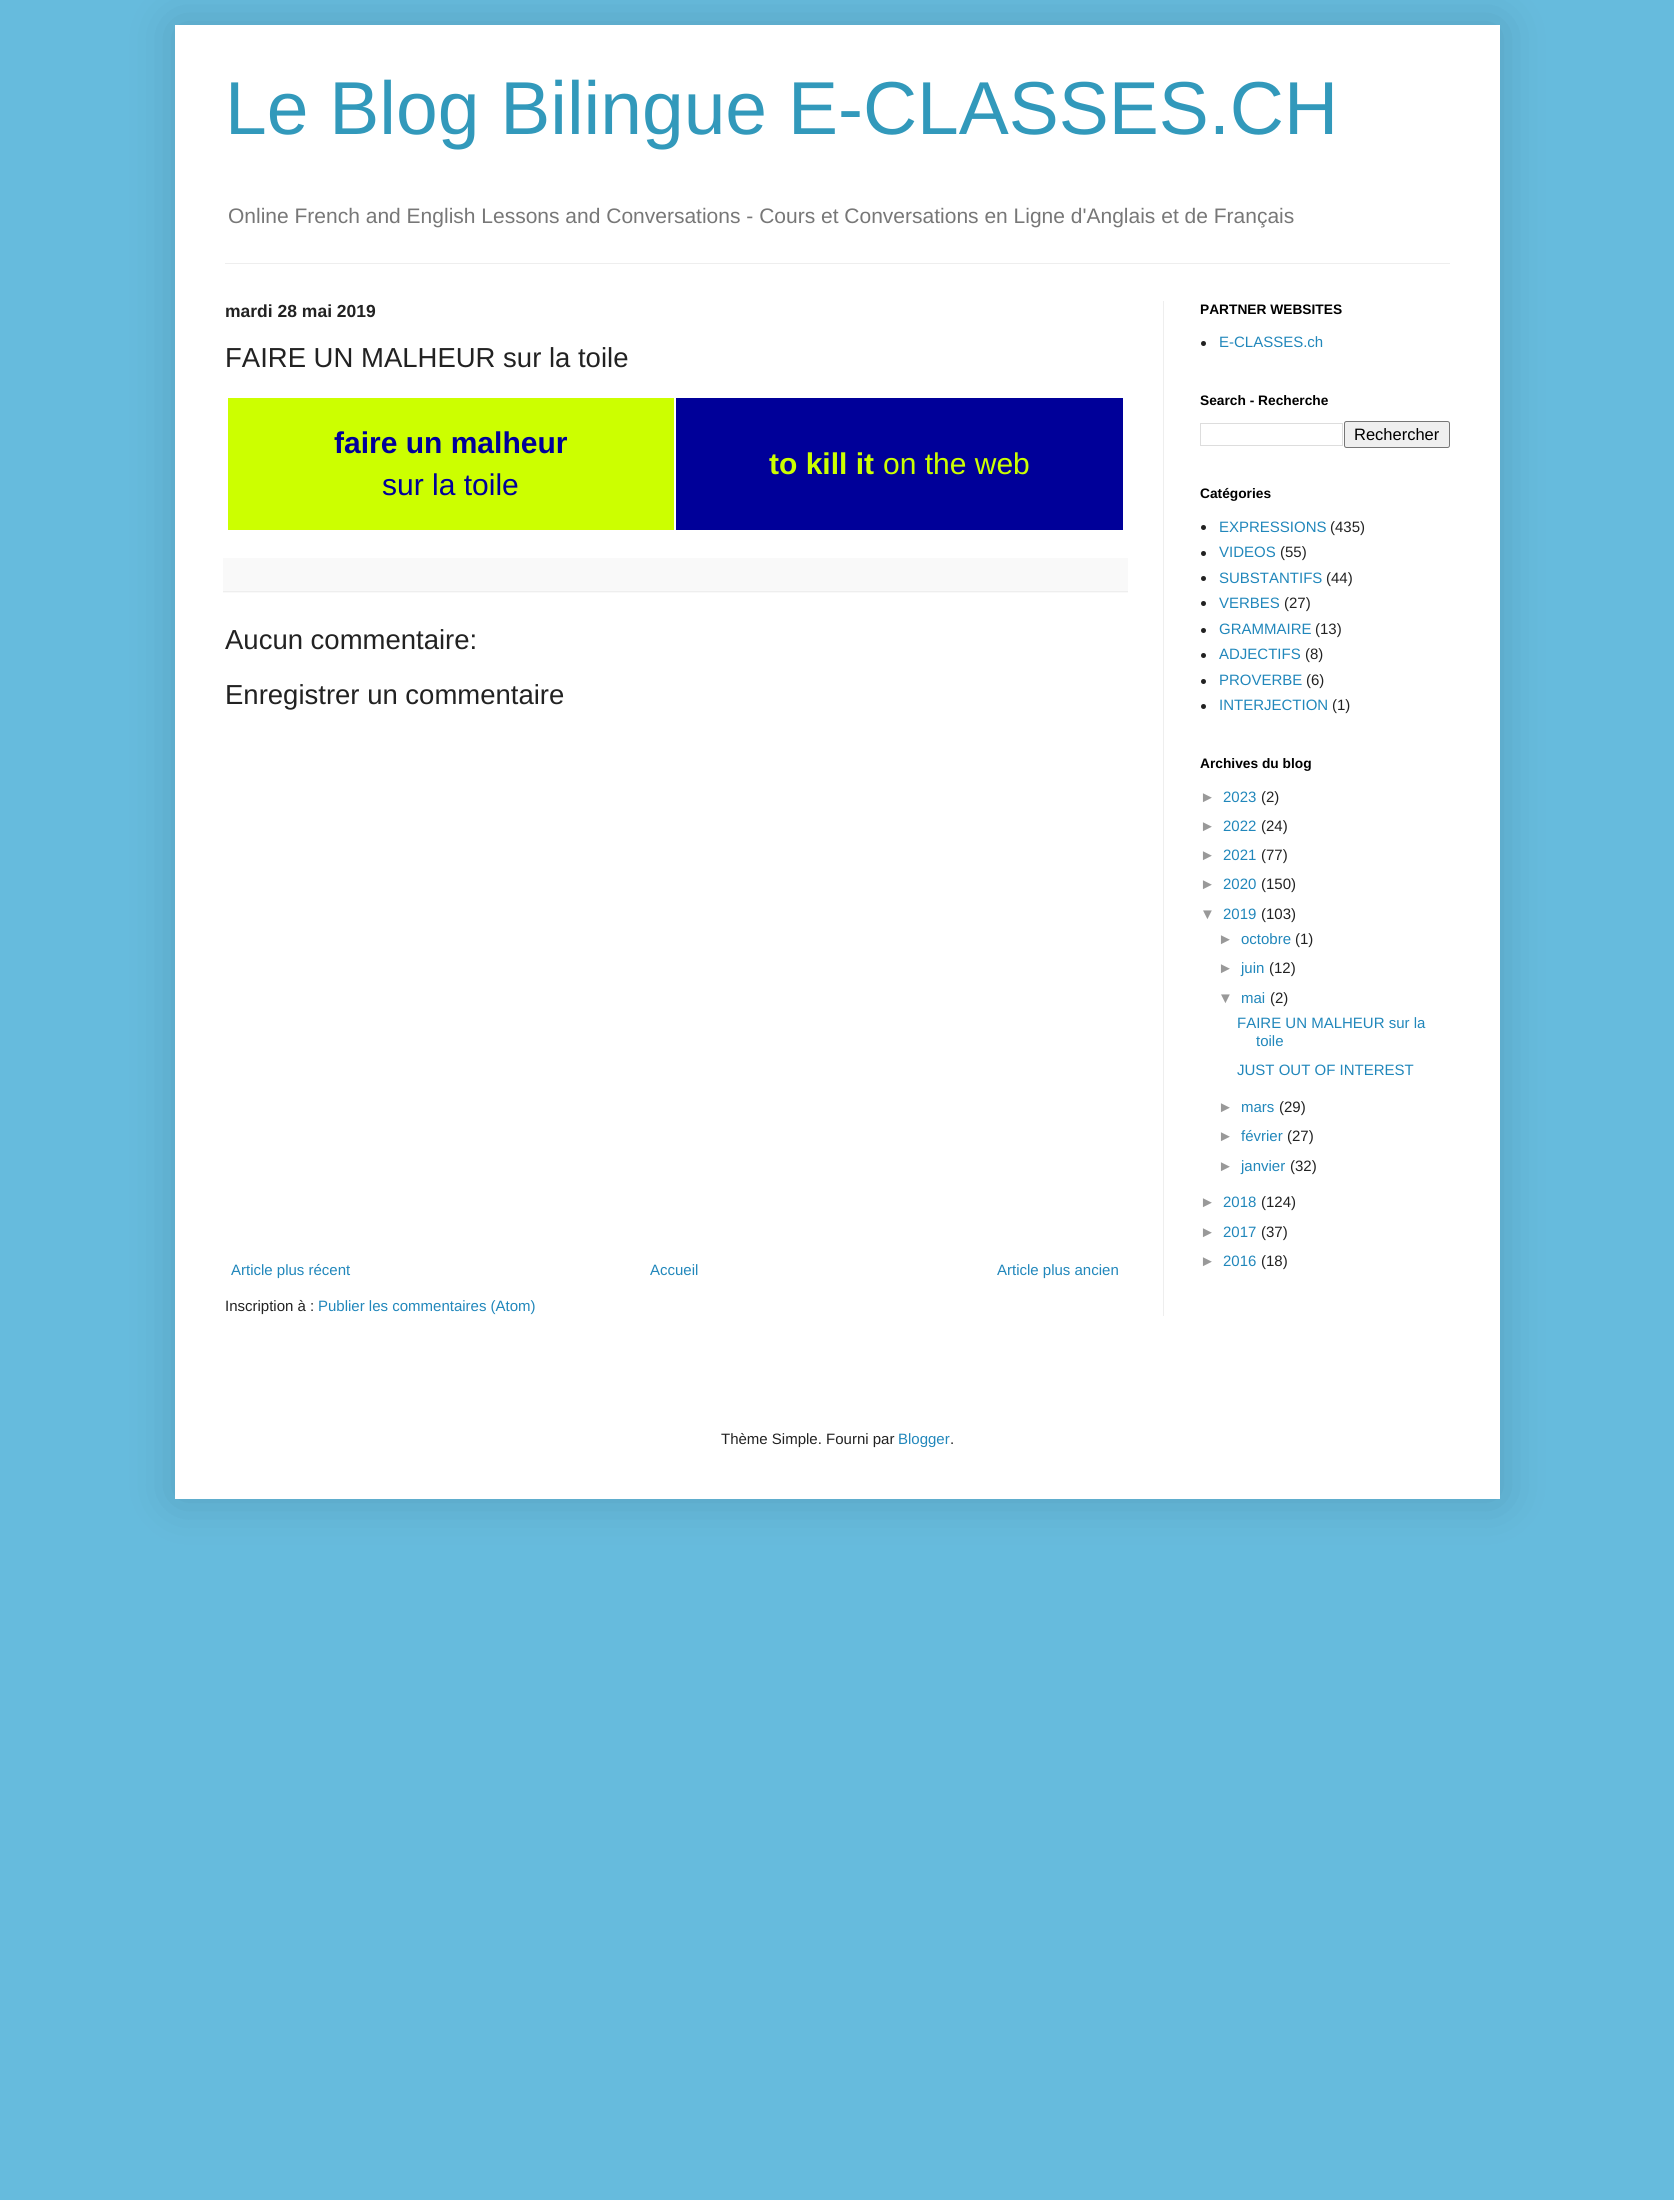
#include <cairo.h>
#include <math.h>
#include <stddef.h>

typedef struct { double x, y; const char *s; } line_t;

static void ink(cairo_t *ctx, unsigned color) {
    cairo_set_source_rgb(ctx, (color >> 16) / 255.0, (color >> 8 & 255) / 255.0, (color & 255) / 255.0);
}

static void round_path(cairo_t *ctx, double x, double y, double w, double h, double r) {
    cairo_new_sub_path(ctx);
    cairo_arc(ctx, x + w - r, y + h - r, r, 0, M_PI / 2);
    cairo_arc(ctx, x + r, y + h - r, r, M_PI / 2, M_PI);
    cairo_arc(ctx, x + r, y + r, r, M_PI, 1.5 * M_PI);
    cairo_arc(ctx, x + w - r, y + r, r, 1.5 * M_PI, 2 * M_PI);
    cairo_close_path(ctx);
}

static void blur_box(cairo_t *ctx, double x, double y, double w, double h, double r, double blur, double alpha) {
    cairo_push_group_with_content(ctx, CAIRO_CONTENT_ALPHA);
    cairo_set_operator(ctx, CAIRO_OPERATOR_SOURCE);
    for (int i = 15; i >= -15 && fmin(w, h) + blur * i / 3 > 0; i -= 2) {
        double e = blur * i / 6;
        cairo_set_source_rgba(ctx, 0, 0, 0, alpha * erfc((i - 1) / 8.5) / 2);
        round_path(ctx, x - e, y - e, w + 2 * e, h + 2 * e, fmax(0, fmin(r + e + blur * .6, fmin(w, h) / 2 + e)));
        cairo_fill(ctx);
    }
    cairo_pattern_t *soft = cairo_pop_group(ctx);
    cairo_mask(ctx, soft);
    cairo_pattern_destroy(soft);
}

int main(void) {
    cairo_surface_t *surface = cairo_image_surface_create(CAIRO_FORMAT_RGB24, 1674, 2200);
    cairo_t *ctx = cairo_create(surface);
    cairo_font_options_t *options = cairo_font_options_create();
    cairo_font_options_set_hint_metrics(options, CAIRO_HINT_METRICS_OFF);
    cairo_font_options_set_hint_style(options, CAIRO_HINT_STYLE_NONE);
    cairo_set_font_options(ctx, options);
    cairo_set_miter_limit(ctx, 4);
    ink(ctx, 0x66BBDD);
    cairo_paint(ctx);
    ink(ctx, 0x000000);
    blur_box(ctx, 175, 25, 1325, 1474, 0, 25, 0.15);
    ink(ctx, 0xFFFFFF);
    cairo_rectangle(ctx, 175, 25, 1325, 1474);
    cairo_fill(ctx);
    cairo_select_font_face(ctx, "Liberation Sans", CAIRO_FONT_SLANT_NORMAL, CAIRO_FONT_WEIGHT_NORMAL);
    cairo_set_font_size(ctx, 75);
    ink(ctx, 0x3299BB);
    cairo_move_to(ctx, 225, 134);
    cairo_show_text(ctx, "Le Blog Bilingue E-CLASSES.CH");
    cairo_set_font_size(ctx, 21);
    ink(ctx, 0x777777);
    cairo_move_to(ctx, 228, 223);
    cairo_show_text(ctx, "Online French and English Lessons and Conversations - Cours et Conversations en Ligne d'Anglais et de Français");
    ink(ctx, 0xEEEEEE);
    cairo_rectangle(ctx, 225, 263, 1225, 1);
    cairo_fill(ctx);
    cairo_rectangle(ctx, 1163, 301, 1, 1015);
    cairo_fill(ctx);
    cairo_select_font_face(ctx, "Liberation Sans", CAIRO_FONT_SLANT_NORMAL, CAIRO_FONT_WEIGHT_BOLD);
    cairo_set_font_size(ctx, 17.5);
    ink(ctx, 0x222222);
    cairo_move_to(ctx, 225, 317);
    cairo_show_text(ctx, "mardi 28 mai 2019");
    cairo_select_font_face(ctx, "Liberation Sans", CAIRO_FONT_SLANT_NORMAL, CAIRO_FONT_WEIGHT_NORMAL);
    cairo_set_font_size(ctx, 27.5);
    cairo_move_to(ctx, 225, 367);
    cairo_show_text(ctx, "FAIRE UN MALHEUR sur la toile");
    ink(ctx, 0xCCFF00);
    cairo_rectangle(ctx, 228, 398, 446, 132);
    cairo_fill(ctx);
    cairo_select_font_face(ctx, "Liberation Sans", CAIRO_FONT_SLANT_NORMAL, CAIRO_FONT_WEIGHT_BOLD);
    cairo_set_font_size(ctx, 30);
    ink(ctx, 0x000099);
    cairo_move_to(ctx, 334, 453);
    cairo_show_text(ctx, "faire un malheur");
    cairo_select_font_face(ctx, "Liberation Sans", CAIRO_FONT_SLANT_NORMAL, CAIRO_FONT_WEIGHT_NORMAL);
    cairo_move_to(ctx, 382, 495);
    cairo_show_text(ctx, "sur la toile");
    cairo_rectangle(ctx, 676, 398, 447, 132);
    cairo_fill(ctx);
    cairo_select_font_face(ctx, "Liberation Sans", CAIRO_FONT_SLANT_NORMAL, CAIRO_FONT_WEIGHT_BOLD);
    ink(ctx, 0xCCFF00);
    cairo_move_to(ctx, 769, 474);
    cairo_show_text(ctx, "to kill it");
    cairo_select_font_face(ctx, "Liberation Sans", CAIRO_FONT_SLANT_NORMAL, CAIRO_FONT_WEIGHT_NORMAL);
    cairo_move_to(ctx, 883, 474);
    cairo_show_text(ctx, "on the web");
    ink(ctx, 0xF9F9F9);
    cairo_rectangle(ctx, 223, 558, 905, 35);
    cairo_fill(ctx);
    ink(ctx, 0xEEEEEE);
    cairo_rectangle(ctx, 223, 591, 905, 1);
    cairo_fill(ctx);
    cairo_set_font_size(ctx, 27.5);
    ink(ctx, 0x222222);
    cairo_move_to(ctx, 225, 649);
    cairo_show_text(ctx, "Aucun commentaire:");
    cairo_move_to(ctx, 225, 704);
    cairo_show_text(ctx, "Enregistrer un commentaire");
    cairo_set_font_size(ctx, 15);
    ink(ctx, 0x2187BB);
    {
        static const line_t items[] = {
            {231, 1275, "Article plus récent"},
            {650, 1275, "Accueil"},
            {997, 1275, "Article plus ancien"},
        };
        for (size_t i = 0; i < sizeof items / sizeof *items; i++) {
            cairo_move_to(ctx, items[i].x, items[i].y);
            cairo_show_text(ctx, items[i].s);
        }
    }
    ink(ctx, 0x222222);
    cairo_move_to(ctx, 225, 1311);
    cairo_show_text(ctx, "Inscription à :");
    ink(ctx, 0x2187BB);
    cairo_move_to(ctx, 318, 1311);
    cairo_show_text(ctx, "Publier les commentaires (Atom)");
    cairo_select_font_face(ctx, "Liberation Sans", CAIRO_FONT_SLANT_NORMAL, CAIRO_FONT_WEIGHT_BOLD);
    cairo_set_font_size(ctx, 13.75);
    ink(ctx, 0x000000);
    cairo_move_to(ctx, 1200, 314);
    cairo_show_text(ctx, "PARTNER WEBSITES");
    ink(ctx, 0x222222);
    cairo_new_path(ctx);
    cairo_arc(ctx, 1203.5, 343.5, 2.5, 0, 2 * M_PI);
    cairo_fill(ctx);
    cairo_select_font_face(ctx, "Liberation Sans", CAIRO_FONT_SLANT_NORMAL, CAIRO_FONT_WEIGHT_NORMAL);
    cairo_set_font_size(ctx, 15);
    ink(ctx, 0x2187BB);
    cairo_move_to(ctx, 1219, 347);
    cairo_show_text(ctx, "E-CLASSES.ch");
    cairo_select_font_face(ctx, "Liberation Sans", CAIRO_FONT_SLANT_NORMAL, CAIRO_FONT_WEIGHT_BOLD);
    cairo_set_font_size(ctx, 13.75);
    ink(ctx, 0x000000);
    cairo_move_to(ctx, 1200, 405);
    cairo_show_text(ctx, "Search - Recherche");
    cairo_rectangle(ctx, 1200.5, 423.5, 142, 22);
    ink(ctx, 0xDDDDDD);
    cairo_set_line_width(ctx, 1);
    cairo_stroke(ctx);
    ink(ctx, 0xEFEFEF);
    round_path(ctx, 1344.5, 421.5, 105, 26, 2);
    cairo_fill_preserve(ctx);
    ink(ctx, 0x767676);
    cairo_stroke(ctx);
    cairo_select_font_face(ctx, "Liberation Sans", CAIRO_FONT_SLANT_NORMAL, CAIRO_FONT_WEIGHT_NORMAL);
    cairo_set_font_size(ctx, 16.5);
    ink(ctx, 0x000000);
    cairo_move_to(ctx, 1354, 440);
    cairo_show_text(ctx, "Rechercher");
    cairo_select_font_face(ctx, "Liberation Sans", CAIRO_FONT_SLANT_NORMAL, CAIRO_FONT_WEIGHT_BOLD);
    cairo_set_font_size(ctx, 13.75);
    cairo_move_to(ctx, 1200, 498);
    cairo_show_text(ctx, "Catégories");
    ink(ctx, 0x222222);
    cairo_new_path(ctx);
    cairo_arc(ctx, 1203.5, 527.5, 2.5, 0, 2 * M_PI);
    cairo_fill(ctx);
    cairo_select_font_face(ctx, "Liberation Sans", CAIRO_FONT_SLANT_NORMAL, CAIRO_FONT_WEIGHT_NORMAL);
    cairo_set_font_size(ctx, 15);
    ink(ctx, 0x2187BB);
    cairo_move_to(ctx, 1219, 532);
    cairo_show_text(ctx, "EXPRESSIONS");
    ink(ctx, 0x222222);
    cairo_move_to(ctx, 1330, 532);
    cairo_show_text(ctx, "(435)");
    cairo_new_path(ctx);
    cairo_arc(ctx, 1203.5, 553.5, 2.5, 0, 2 * M_PI);
    cairo_fill(ctx);
    ink(ctx, 0x2187BB);
    cairo_move_to(ctx, 1219, 557);
    cairo_show_text(ctx, "VIDEOS");
    ink(ctx, 0x222222);
    cairo_move_to(ctx, 1280, 557);
    cairo_show_text(ctx, "(55)");
    cairo_new_path(ctx);
    cairo_arc(ctx, 1203.5, 578.5, 2.5, 0, 2 * M_PI);
    cairo_fill(ctx);
    ink(ctx, 0x2187BB);
    cairo_move_to(ctx, 1219, 583);
    cairo_show_text(ctx, "SUBSTANTIFS");
    ink(ctx, 0x222222);
    cairo_move_to(ctx, 1326, 583);
    cairo_show_text(ctx, "(44)");
    cairo_new_path(ctx);
    cairo_arc(ctx, 1203.5, 603.5, 2.5, 0, 2 * M_PI);
    cairo_fill(ctx);
    ink(ctx, 0x2187BB);
    cairo_move_to(ctx, 1219, 608);
    cairo_show_text(ctx, "VERBES");
    ink(ctx, 0x222222);
    cairo_move_to(ctx, 1284, 608);
    cairo_show_text(ctx, "(27)");
    cairo_new_path(ctx);
    cairo_arc(ctx, 1203.5, 630.5, 2.5, 0, 2 * M_PI);
    cairo_fill(ctx);
    ink(ctx, 0x2187BB);
    cairo_move_to(ctx, 1219, 634);
    cairo_show_text(ctx, "GRAMMAIRE");
    ink(ctx, 0x222222);
    cairo_move_to(ctx, 1315, 634);
    cairo_show_text(ctx, "(13)");
    cairo_new_path(ctx);
    cairo_arc(ctx, 1203.5, 655.5, 2.5, 0, 2 * M_PI);
    cairo_fill(ctx);
    ink(ctx, 0x2187BB);
    cairo_move_to(ctx, 1219, 659);
    cairo_show_text(ctx, "ADJECTIFS");
    ink(ctx, 0x222222);
    cairo_move_to(ctx, 1305, 659);
    cairo_show_text(ctx, "(8)");
    cairo_new_path(ctx);
    cairo_arc(ctx, 1203.5, 681.5, 2.5, 0, 2 * M_PI);
    cairo_fill(ctx);
    ink(ctx, 0x2187BB);
    cairo_move_to(ctx, 1219, 685);
    cairo_show_text(ctx, "PROVERBE");
    ink(ctx, 0x222222);
    cairo_move_to(ctx, 1306, 685);
    cairo_show_text(ctx, "(6)");
    cairo_new_path(ctx);
    cairo_arc(ctx, 1203.5, 706.5, 2.5, 0, 2 * M_PI);
    cairo_fill(ctx);
    ink(ctx, 0x2187BB);
    cairo_move_to(ctx, 1219, 710);
    cairo_show_text(ctx, "INTERJECTION");
    ink(ctx, 0x222222);
    cairo_move_to(ctx, 1332, 710);
    cairo_show_text(ctx, "(1)");
    cairo_select_font_face(ctx, "Liberation Sans", CAIRO_FONT_SLANT_NORMAL, CAIRO_FONT_WEIGHT_BOLD);
    cairo_set_font_size(ctx, 13.75);
    ink(ctx, 0x000000);
    cairo_move_to(ctx, 1200, 768);
    cairo_show_text(ctx, "Archives du blog");
    cairo_select_font_face(ctx, "Liberation Sans", CAIRO_FONT_SLANT_NORMAL, CAIRO_FONT_WEIGHT_NORMAL);
    cairo_set_font_size(ctx, 15);
    ink(ctx, 0x999999);
    cairo_move_to(ctx, 1200, 802);
    cairo_show_text(ctx, "►");
    ink(ctx, 0x2187BB);
    cairo_move_to(ctx, 1223, 802);
    cairo_show_text(ctx, "2023");
    ink(ctx, 0x222222);
    cairo_move_to(ctx, 1261, 802);
    cairo_show_text(ctx, "(2)");
    ink(ctx, 0x999999);
    cairo_move_to(ctx, 1200, 831);
    cairo_show_text(ctx, "►");
    ink(ctx, 0x2187BB);
    cairo_move_to(ctx, 1223, 831);
    cairo_show_text(ctx, "2022");
    ink(ctx, 0x222222);
    cairo_move_to(ctx, 1261, 831);
    cairo_show_text(ctx, "(24)");
    ink(ctx, 0x999999);
    cairo_move_to(ctx, 1200, 860);
    cairo_show_text(ctx, "►");
    ink(ctx, 0x2187BB);
    cairo_move_to(ctx, 1223, 860);
    cairo_show_text(ctx, "2021");
    ink(ctx, 0x222222);
    cairo_move_to(ctx, 1261, 860);
    cairo_show_text(ctx, "(77)");
    ink(ctx, 0x999999);
    cairo_move_to(ctx, 1200, 889);
    cairo_show_text(ctx, "►");
    ink(ctx, 0x2187BB);
    cairo_move_to(ctx, 1223, 889);
    cairo_show_text(ctx, "2020");
    ink(ctx, 0x222222);
    cairo_move_to(ctx, 1261, 889);
    cairo_show_text(ctx, "(150)");
    ink(ctx, 0x999999);
    cairo_move_to(ctx, 1200, 919);
    cairo_show_text(ctx, "▼");
    ink(ctx, 0x2187BB);
    cairo_move_to(ctx, 1223, 919);
    cairo_show_text(ctx, "2019");
    ink(ctx, 0x222222);
    cairo_move_to(ctx, 1261, 919);
    cairo_show_text(ctx, "(103)");
    ink(ctx, 0x999999);
    cairo_move_to(ctx, 1218, 944);
    cairo_show_text(ctx, "►");
    ink(ctx, 0x2187BB);
    cairo_move_to(ctx, 1241, 944);
    cairo_show_text(ctx, "octobre");
    ink(ctx, 0x222222);
    cairo_move_to(ctx, 1295, 944);
    cairo_show_text(ctx, "(1)");
    ink(ctx, 0x999999);
    cairo_move_to(ctx, 1218, 973);
    cairo_show_text(ctx, "►");
    ink(ctx, 0x2187BB);
    cairo_move_to(ctx, 1241, 973);
    cairo_show_text(ctx, "juin");
    ink(ctx, 0x222222);
    cairo_move_to(ctx, 1269, 973);
    cairo_show_text(ctx, "(12)");
    ink(ctx, 0x999999);
    cairo_move_to(ctx, 1218, 1003);
    cairo_show_text(ctx, "▼");
    ink(ctx, 0x2187BB);
    cairo_move_to(ctx, 1241, 1003);
    cairo_show_text(ctx, "mai");
    ink(ctx, 0x222222);
    cairo_move_to(ctx, 1270, 1003);
    cairo_show_text(ctx, "(2)");
    ink(ctx, 0x2187BB);
    {
        static const line_t items[] = {
            {1237, 1028, "FAIRE UN MALHEUR sur la"},
            {1256, 1046, "toile"},
            {1237, 1075, "JUST OUT OF INTEREST"},
        };
        for (size_t i = 0; i < sizeof items / sizeof *items; i++) {
            cairo_move_to(ctx, items[i].x, items[i].y);
            cairo_show_text(ctx, items[i].s);
        }
    }
    ink(ctx, 0x999999);
    cairo_move_to(ctx, 1218, 1112);
    cairo_show_text(ctx, "►");
    ink(ctx, 0x2187BB);
    cairo_move_to(ctx, 1241, 1112);
    cairo_show_text(ctx, "mars");
    ink(ctx, 0x222222);
    cairo_move_to(ctx, 1279, 1112);
    cairo_show_text(ctx, "(29)");
    ink(ctx, 0x999999);
    cairo_move_to(ctx, 1218, 1141);
    cairo_show_text(ctx, "►");
    ink(ctx, 0x2187BB);
    cairo_move_to(ctx, 1241, 1141);
    cairo_show_text(ctx, "février");
    ink(ctx, 0x222222);
    cairo_move_to(ctx, 1287, 1141);
    cairo_show_text(ctx, "(27)");
    ink(ctx, 0x999999);
    cairo_move_to(ctx, 1218, 1171);
    cairo_show_text(ctx, "►");
    ink(ctx, 0x2187BB);
    cairo_move_to(ctx, 1241, 1171);
    cairo_show_text(ctx, "janvier");
    ink(ctx, 0x222222);
    cairo_move_to(ctx, 1290, 1171);
    cairo_show_text(ctx, "(32)");
    ink(ctx, 0x999999);
    cairo_move_to(ctx, 1200, 1207);
    cairo_show_text(ctx, "►");
    ink(ctx, 0x2187BB);
    cairo_move_to(ctx, 1223, 1207);
    cairo_show_text(ctx, "2018");
    ink(ctx, 0x222222);
    cairo_move_to(ctx, 1261, 1207);
    cairo_show_text(ctx, "(124)");
    ink(ctx, 0x999999);
    cairo_move_to(ctx, 1200, 1237);
    cairo_show_text(ctx, "►");
    ink(ctx, 0x2187BB);
    cairo_move_to(ctx, 1223, 1237);
    cairo_show_text(ctx, "2017");
    ink(ctx, 0x222222);
    cairo_move_to(ctx, 1261, 1237);
    cairo_show_text(ctx, "(37)");
    ink(ctx, 0x999999);
    cairo_move_to(ctx, 1200, 1266);
    cairo_show_text(ctx, "►");
    ink(ctx, 0x2187BB);
    cairo_move_to(ctx, 1223, 1266);
    cairo_show_text(ctx, "2016");
    ink(ctx, 0x222222);
    cairo_move_to(ctx, 1261, 1266);
    cairo_show_text(ctx, "(18)");
    cairo_move_to(ctx, 721, 1444);
    cairo_show_text(ctx, "Thème Simple. Fourni par");
    ink(ctx, 0x2187BB);
    cairo_move_to(ctx, 898, 1444);
    cairo_show_text(ctx, "Blogger");
    ink(ctx, 0x222222);
    cairo_move_to(ctx, 950, 1444);
    cairo_show_text(ctx, ".");
    cairo_surface_write_to_png(surface, "image.png");
    cairo_font_options_destroy(options);
    cairo_destroy(ctx);
    cairo_surface_destroy(surface);
    return 0;
}
